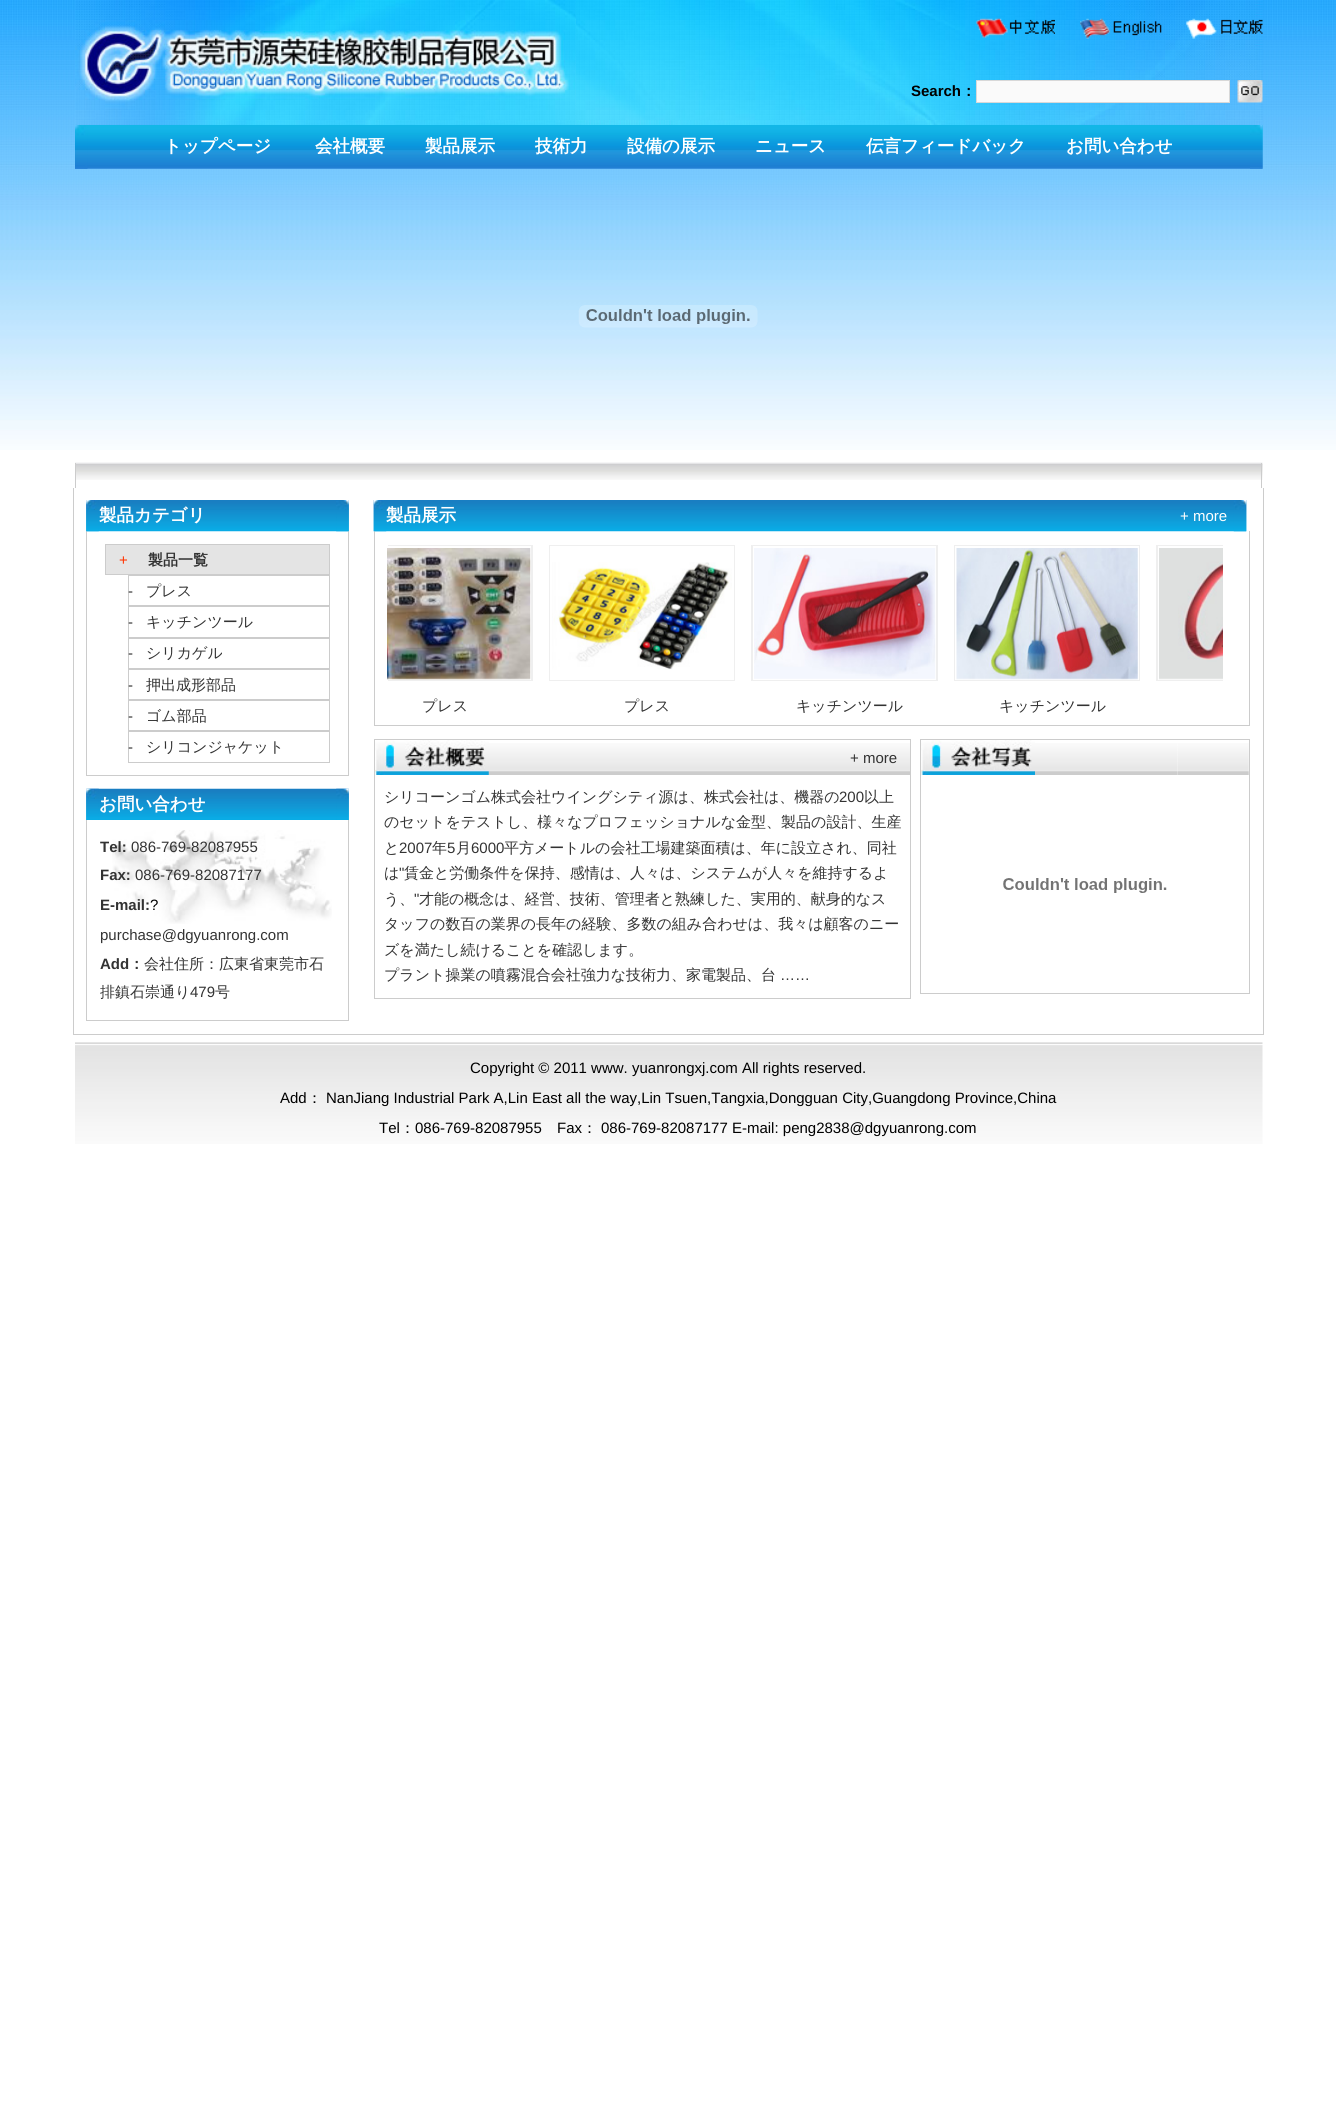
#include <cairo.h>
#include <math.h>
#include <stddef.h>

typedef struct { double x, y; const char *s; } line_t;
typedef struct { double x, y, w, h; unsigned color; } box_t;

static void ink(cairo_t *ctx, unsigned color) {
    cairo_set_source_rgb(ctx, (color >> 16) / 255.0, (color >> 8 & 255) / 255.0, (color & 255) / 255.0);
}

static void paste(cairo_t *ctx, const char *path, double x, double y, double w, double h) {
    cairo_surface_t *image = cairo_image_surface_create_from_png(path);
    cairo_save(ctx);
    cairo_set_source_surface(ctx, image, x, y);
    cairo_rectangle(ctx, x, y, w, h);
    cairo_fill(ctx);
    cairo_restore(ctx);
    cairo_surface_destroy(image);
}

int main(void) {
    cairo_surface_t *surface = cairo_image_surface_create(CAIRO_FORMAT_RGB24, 1336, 2115);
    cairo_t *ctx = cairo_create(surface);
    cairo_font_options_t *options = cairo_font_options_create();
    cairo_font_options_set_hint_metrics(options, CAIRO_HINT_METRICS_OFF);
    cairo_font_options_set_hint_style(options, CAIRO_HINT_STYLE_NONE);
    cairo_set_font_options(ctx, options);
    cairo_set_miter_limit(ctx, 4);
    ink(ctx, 0xFFFFFF);
    cairo_paint(ctx);
    paste(ctx, "media/1.png", 0, 0, 1336, 450);
    paste(ctx, "media/2.png", 576, 0, 687, 125);
    paste(ctx, "media/3.png", 75, 0, 501, 125);
    paste(ctx, "media/4.png", 976, 18, 79, 20);
    paste(ctx, "media/5.png", 1080, 18, 82, 21);
    paste(ctx, "media/6.png", 1186, 18, 77, 21);
    cairo_select_font_face(ctx, "Liberation Sans", CAIRO_FONT_SLANT_NORMAL, CAIRO_FONT_WEIGHT_BOLD);
    cairo_set_font_size(ctx, 15);
    ink(ctx, 0x000000);
    cairo_move_to(ctx, 911, 96);
    cairo_show_text(ctx, "Search");
    cairo_select_font_face(ctx, "WenQuanYi Zen Hei", CAIRO_FONT_SLANT_NORMAL, CAIRO_FONT_WEIGHT_BOLD);
    cairo_move_to(ctx, 961, 96);
    cairo_show_text(ctx, "：");
    ink(ctx, 0xFAFAFA);
    cairo_rectangle(ctx, 976.5, 80.5, 253, 22);
    cairo_fill_preserve(ctx);
    ink(ctx, 0xD8D8D8);
    cairo_set_line_width(ctx, 1);
    cairo_stroke(ctx);
    paste(ctx, "media/7.png", 1237, 80, 26, 23);
    paste(ctx, "media/8.png", 75, 125, 1188, 44);
    paste(ctx, "media/9.png", 75, 125, 13, 44);
    cairo_set_font_size(ctx, 17.5);
    ink(ctx, 0xFFFFFF);
    {
        static const line_t items[] = {
            {164, 152, "トップページ"},
            {315, 152, "会社概要"},
            {425, 152, "製品展示"},
            {535, 152, "技術力"},
            {627, 152, "設備の展示"},
            {755, 152, "ニュース"},
            {866, 152, "伝言フィードバック"},
            {1066, 152, "お問い合わせ"},
        };
        for (size_t i = 0; i < sizeof items / sizeof *items; i++) {
            cairo_move_to(ctx, items[i].x, items[i].y);
            cairo_show_text(ctx, items[i].s);
        }
    }
    paste(ctx, "media/10.png", 1250, 125, 13, 44);
    paste(ctx, "media/11.png", 578, 305, 180, 23);
    paste(ctx, "media/12.png", 75, 462, 1188, 18);
    {
        static const box_t items[] = {
            {1261, 463, 1, 25, 0xCCCCCC},
            {75, 463, 1, 25, 0xCCCCCC},
            {1263, 488, 1, 547, 0xCCCCCC},
            {73, 1034, 1191, 1, 0xCCCCCC},
            {73, 488, 1, 547, 0xCCCCCC},
        };
        for (size_t i = 0; i < sizeof items / sizeof *items; i++) {
            ink(ctx, items[i].color);
            cairo_rectangle(ctx, items[i].x, items[i].y, items[i].w, items[i].h);
            cairo_fill(ctx);
        }
    }
    paste(ctx, "media/13.png", 86, 500, 263, 32);
    {
        static const box_t items[] = {
            {348, 531, 1, 245, 0xCCCCCC},
            {86, 775, 263, 1, 0xCCCCCC},
            {86, 531, 1, 245, 0xCCCCCC},
        };
        for (size_t i = 0; i < sizeof items / sizeof *items; i++) {
            ink(ctx, items[i].color);
            cairo_rectangle(ctx, items[i].x, items[i].y, items[i].w, items[i].h);
            cairo_fill(ctx);
        }
    }
    paste(ctx, "media/14.png", 86, 500, 13, 32);
    ink(ctx, 0xFFFFFF);
    cairo_move_to(ctx, 99, 521);
    cairo_show_text(ctx, "製品カテゴリ");
    paste(ctx, "media/15.png", 336, 500, 13, 32);
    ink(ctx, 0xE4E4E4);
    cairo_rectangle(ctx, 105.5, 544.5, 224, 30);
    cairo_fill_preserve(ctx);
    ink(ctx, 0xCCCCCC);
    cairo_stroke(ctx);
    cairo_select_font_face(ctx, "Liberation Sans", CAIRO_FONT_SLANT_NORMAL, CAIRO_FONT_WEIGHT_NORMAL);
    cairo_set_font_size(ctx, 15);
    ink(ctx, 0xFF3300);
    cairo_move_to(ctx, 119, 565);
    cairo_show_text(ctx, "+");
    cairo_select_font_face(ctx, "WenQuanYi Zen Hei", CAIRO_FONT_SLANT_NORMAL, CAIRO_FONT_WEIGHT_BOLD);
    ink(ctx, 0x333333);
    cairo_move_to(ctx, 148, 565);
    cairo_show_text(ctx, "製品一覧");
    cairo_rectangle(ctx, 128.5, 575.5, 201, 30);
    ink(ctx, 0xCCCCCC);
    cairo_stroke(ctx);
    cairo_select_font_face(ctx, "Liberation Sans", CAIRO_FONT_SLANT_NORMAL, CAIRO_FONT_WEIGHT_NORMAL);
    ink(ctx, 0x333333);
    cairo_move_to(ctx, 128, 596);
    cairo_show_text(ctx, "-");
    cairo_select_font_face(ctx, "WenQuanYi Zen Hei Medium", CAIRO_FONT_SLANT_NORMAL, CAIRO_FONT_WEIGHT_NORMAL);
    cairo_move_to(ctx, 146, 596);
    cairo_show_text(ctx, "プレス");
    cairo_rectangle(ctx, 128.5, 606.5, 201, 31);
    ink(ctx, 0xCCCCCC);
    cairo_stroke(ctx);
    cairo_select_font_face(ctx, "Liberation Sans", CAIRO_FONT_SLANT_NORMAL, CAIRO_FONT_WEIGHT_NORMAL);
    ink(ctx, 0x333333);
    cairo_move_to(ctx, 128, 627);
    cairo_show_text(ctx, "-");
    cairo_select_font_face(ctx, "WenQuanYi Zen Hei Medium", CAIRO_FONT_SLANT_NORMAL, CAIRO_FONT_WEIGHT_NORMAL);
    cairo_move_to(ctx, 146, 627);
    cairo_show_text(ctx, "キッチンツール");
    cairo_rectangle(ctx, 128.5, 638.5, 201, 30);
    ink(ctx, 0xCCCCCC);
    cairo_stroke(ctx);
    cairo_select_font_face(ctx, "Liberation Sans", CAIRO_FONT_SLANT_NORMAL, CAIRO_FONT_WEIGHT_NORMAL);
    ink(ctx, 0x333333);
    cairo_move_to(ctx, 128, 658);
    cairo_show_text(ctx, "-");
    cairo_select_font_face(ctx, "WenQuanYi Zen Hei Medium", CAIRO_FONT_SLANT_NORMAL, CAIRO_FONT_WEIGHT_NORMAL);
    cairo_move_to(ctx, 146, 658);
    cairo_show_text(ctx, "シリカゲル");
    cairo_rectangle(ctx, 128.5, 669.5, 201, 30);
    ink(ctx, 0xCCCCCC);
    cairo_stroke(ctx);
    cairo_select_font_face(ctx, "Liberation Sans", CAIRO_FONT_SLANT_NORMAL, CAIRO_FONT_WEIGHT_NORMAL);
    ink(ctx, 0x333333);
    cairo_move_to(ctx, 128, 690);
    cairo_show_text(ctx, "-");
    cairo_select_font_face(ctx, "WenQuanYi Zen Hei Medium", CAIRO_FONT_SLANT_NORMAL, CAIRO_FONT_WEIGHT_NORMAL);
    cairo_move_to(ctx, 146, 690);
    cairo_show_text(ctx, "押出成形部品");
    cairo_rectangle(ctx, 128.5, 700.5, 201, 30);
    ink(ctx, 0xCCCCCC);
    cairo_stroke(ctx);
    cairo_select_font_face(ctx, "Liberation Sans", CAIRO_FONT_SLANT_NORMAL, CAIRO_FONT_WEIGHT_NORMAL);
    ink(ctx, 0x333333);
    cairo_move_to(ctx, 128, 721);
    cairo_show_text(ctx, "-");
    cairo_select_font_face(ctx, "WenQuanYi Zen Hei Medium", CAIRO_FONT_SLANT_NORMAL, CAIRO_FONT_WEIGHT_NORMAL);
    cairo_move_to(ctx, 146, 721);
    cairo_show_text(ctx, "ゴム部品");
    cairo_rectangle(ctx, 128.5, 731.5, 201, 31);
    ink(ctx, 0xCCCCCC);
    cairo_stroke(ctx);
    cairo_select_font_face(ctx, "Liberation Sans", CAIRO_FONT_SLANT_NORMAL, CAIRO_FONT_WEIGHT_NORMAL);
    ink(ctx, 0x333333);
    cairo_move_to(ctx, 128, 752);
    cairo_show_text(ctx, "-");
    cairo_select_font_face(ctx, "WenQuanYi Zen Hei Medium", CAIRO_FONT_SLANT_NORMAL, CAIRO_FONT_WEIGHT_NORMAL);
    cairo_move_to(ctx, 146, 752);
    cairo_show_text(ctx, "シリコンジャケット");
    paste(ctx, "media/16.png", 86, 788, 263, 32);
    paste(ctx, "media/17.png", 86, 788, 13, 32);
    cairo_select_font_face(ctx, "WenQuanYi Zen Hei", CAIRO_FONT_SLANT_NORMAL, CAIRO_FONT_WEIGHT_BOLD);
    cairo_set_font_size(ctx, 17.5);
    ink(ctx, 0xFFFFFF);
    cairo_move_to(ctx, 99, 810);
    cairo_show_text(ctx, "お問い合わせ");
    paste(ctx, "media/18.png", 336, 788, 13, 32);
    paste(ctx, "media/19.png", 112, 830, 220, 94);
    {
        static const box_t items[] = {
            {348, 820, 1, 201, 0xCCCCCC},
            {86, 1020, 263, 1, 0xCCCCCC},
            {86, 820, 1, 201, 0xCCCCCC},
        };
        for (size_t i = 0; i < sizeof items / sizeof *items; i++) {
            ink(ctx, items[i].color);
            cairo_rectangle(ctx, items[i].x, items[i].y, items[i].w, items[i].h);
            cairo_fill(ctx);
        }
    }
    cairo_select_font_face(ctx, "Liberation Sans", CAIRO_FONT_SLANT_NORMAL, CAIRO_FONT_WEIGHT_BOLD);
    cairo_set_font_size(ctx, 15);
    ink(ctx, 0x333333);
    cairo_move_to(ctx, 100, 852);
    cairo_show_text(ctx, "Tel:");
    cairo_select_font_face(ctx, "Liberation Sans", CAIRO_FONT_SLANT_NORMAL, CAIRO_FONT_WEIGHT_NORMAL);
    cairo_move_to(ctx, 131, 852);
    cairo_show_text(ctx, "086-769-82087955");
    cairo_select_font_face(ctx, "Liberation Sans", CAIRO_FONT_SLANT_NORMAL, CAIRO_FONT_WEIGHT_BOLD);
    cairo_move_to(ctx, 100, 880);
    cairo_show_text(ctx, "Fax:");
    cairo_select_font_face(ctx, "Liberation Sans", CAIRO_FONT_SLANT_NORMAL, CAIRO_FONT_WEIGHT_NORMAL);
    cairo_move_to(ctx, 135, 880);
    cairo_show_text(ctx, "086-769-82087177");
    cairo_select_font_face(ctx, "Liberation Sans", CAIRO_FONT_SLANT_NORMAL, CAIRO_FONT_WEIGHT_BOLD);
    cairo_move_to(ctx, 100, 910);
    cairo_show_text(ctx, "E-mail:");
    cairo_select_font_face(ctx, "Liberation Sans", CAIRO_FONT_SLANT_NORMAL, CAIRO_FONT_WEIGHT_NORMAL);
    ink(ctx, 0x000000);
    cairo_move_to(ctx, 150, 910);
    cairo_show_text(ctx, "?");
    ink(ctx, 0x333333);
    cairo_move_to(ctx, 100, 940);
    cairo_show_text(ctx, "purchase@dgyuanrong.com");
    cairo_select_font_face(ctx, "Liberation Sans", CAIRO_FONT_SLANT_NORMAL, CAIRO_FONT_WEIGHT_BOLD);
    cairo_move_to(ctx, 100, 969);
    cairo_show_text(ctx, "Add");
    cairo_select_font_face(ctx, "WenQuanYi Zen Hei", CAIRO_FONT_SLANT_NORMAL, CAIRO_FONT_WEIGHT_BOLD);
    cairo_move_to(ctx, 129, 969);
    cairo_show_text(ctx, "：");
    cairo_select_font_face(ctx, "WenQuanYi Zen Hei Medium", CAIRO_FONT_SLANT_NORMAL, CAIRO_FONT_WEIGHT_NORMAL);
    cairo_move_to(ctx, 144, 969);
    cairo_show_text(ctx, "会社住所：広東省東莞市石");
    cairo_move_to(ctx, 100, 997);
    cairo_show_text(ctx, "排鎮石崇通り");
    cairo_select_font_face(ctx, "Liberation Sans", CAIRO_FONT_SLANT_NORMAL, CAIRO_FONT_WEIGHT_NORMAL);
    cairo_move_to(ctx, 190, 997);
    cairo_show_text(ctx, "479");
    cairo_select_font_face(ctx, "WenQuanYi Zen Hei Medium", CAIRO_FONT_SLANT_NORMAL, CAIRO_FONT_WEIGHT_NORMAL);
    cairo_move_to(ctx, 215, 997);
    cairo_show_text(ctx, "号");
    paste(ctx, "media/20.png", 373, 500, 874, 32);
    {
        static const box_t items[] = {
            {1249, 531, 1, 195, 0xCCCCCC},
            {374, 725, 876, 1, 0xCCCCCC},
            {374, 531, 1, 195, 0xCCCCCC},
        };
        for (size_t i = 0; i < sizeof items / sizeof *items; i++) {
            ink(ctx, items[i].color);
            cairo_rectangle(ctx, items[i].x, items[i].y, items[i].w, items[i].h);
            cairo_fill(ctx);
        }
    }
    paste(ctx, "media/21.png", 373, 500, 14, 32);
    cairo_select_font_face(ctx, "WenQuanYi Zen Hei", CAIRO_FONT_SLANT_NORMAL, CAIRO_FONT_WEIGHT_BOLD);
    cairo_set_font_size(ctx, 17.5);
    ink(ctx, 0xFFFFFF);
    cairo_move_to(ctx, 386, 521);
    cairo_show_text(ctx, "製品展示");
    cairo_select_font_face(ctx, "Liberation Sans", CAIRO_FONT_SLANT_NORMAL, CAIRO_FONT_WEIGHT_NORMAL);
    cairo_set_font_size(ctx, 15);
    cairo_move_to(ctx, 1180, 521);
    cairo_show_text(ctx, "+ more");
    paste(ctx, "media/22.png", 1233, 500, 14, 32);
    ink(ctx, 0xEFEFEF);
    cairo_rectangle(ctx, 1156, 545, 67, 136);
    cairo_fill(ctx);
    ink(ctx, 0xFFFFFF);
    cairo_rectangle(ctx, 1158, 546, 65, 134);
    cairo_fill(ctx);
    paste(ctx, "media/23.png", 1159, 548, 64, 132);
    ink(ctx, 0xEFEFEF);
    cairo_rectangle(ctx, 388, 545, 145, 136);
    cairo_fill(ctx);
    ink(ctx, 0xFFFFFF);
    cairo_rectangle(ctx, 388, 546, 143, 134);
    cairo_fill(ctx);
    paste(ctx, "media/24.png", 387, 548, 144, 132);
    cairo_select_font_face(ctx, "WenQuanYi Zen Hei Medium", CAIRO_FONT_SLANT_NORMAL, CAIRO_FONT_WEIGHT_NORMAL);
    ink(ctx, 0x333333);
    cairo_move_to(ctx, 422, 711);
    cairo_show_text(ctx, "プレス");
    ink(ctx, 0xEFEFEF);
    cairo_rectangle(ctx, 549, 545, 186, 136);
    cairo_fill(ctx);
    ink(ctx, 0xFFFFFF);
    cairo_rectangle(ctx, 550, 546, 184, 134);
    cairo_fill(ctx);
    paste(ctx, "media/25.png", 552, 562, 180, 108);
    ink(ctx, 0x333333);
    cairo_move_to(ctx, 624, 711);
    cairo_show_text(ctx, "プレス");
    ink(ctx, 0xEFEFEF);
    cairo_rectangle(ctx, 751, 545, 187, 136);
    cairo_fill(ctx);
    ink(ctx, 0xFFFFFF);
    cairo_rectangle(ctx, 753, 546, 183, 134);
    cairo_fill(ctx);
    paste(ctx, "media/26.png", 754, 548, 182, 131);
    ink(ctx, 0x333333);
    cairo_move_to(ctx, 796, 711);
    cairo_show_text(ctx, "キッチンツール");
    ink(ctx, 0xEFEFEF);
    cairo_rectangle(ctx, 954, 545, 186, 136);
    cairo_fill(ctx);
    ink(ctx, 0xFFFFFF);
    cairo_rectangle(ctx, 955, 546, 184, 134);
    cairo_fill(ctx);
    paste(ctx, "media/27.png", 956, 548, 182, 132);
    ink(ctx, 0x333333);
    cairo_move_to(ctx, 999, 711);
    cairo_show_text(ctx, "キッチンツール");
    cairo_rectangle(ctx, 374.5, 739.5, 536, 259);
    ink(ctx, 0xCCCCCC);
    cairo_stroke(ctx);
    paste(ctx, "media/28.png", 488, 743, 362, 32);
    paste(ctx, "media/29.png", 375, 740, 114, 35);
    paste(ctx, "media/30.png", 850, 743, 60, 32);
    cairo_select_font_face(ctx, "Liberation Sans", CAIRO_FONT_SLANT_NORMAL, CAIRO_FONT_WEIGHT_NORMAL);
    ink(ctx, 0x333333);
    cairo_move_to(ctx, 850, 763);
    cairo_show_text(ctx, "+ more");
    cairo_select_font_face(ctx, "WenQuanYi Zen Hei Medium", CAIRO_FONT_SLANT_NORMAL, CAIRO_FONT_WEIGHT_NORMAL);
    cairo_move_to(ctx, 384, 802);
    cairo_show_text(ctx, "シリコーンゴム株式会社ウイングシティ源は、株式会社は、機器の");
    cairo_select_font_face(ctx, "Liberation Sans", CAIRO_FONT_SLANT_NORMAL, CAIRO_FONT_WEIGHT_NORMAL);
    cairo_move_to(ctx, 839, 802);
    cairo_show_text(ctx, "200");
    cairo_select_font_face(ctx, "WenQuanYi Zen Hei Medium", CAIRO_FONT_SLANT_NORMAL, CAIRO_FONT_WEIGHT_NORMAL);
    {
        static const line_t items[] = {
            {864, 802, "以上"},
            {384, 827, "のセットをテストし、様々なプロフェッショナルな金型、製品の設計、生産"},
            {384, 853, "と"},
        };
        for (size_t i = 0; i < sizeof items / sizeof *items; i++) {
            cairo_move_to(ctx, items[i].x, items[i].y);
            cairo_show_text(ctx, items[i].s);
        }
    }
    cairo_select_font_face(ctx, "Liberation Sans", CAIRO_FONT_SLANT_NORMAL, CAIRO_FONT_WEIGHT_NORMAL);
    cairo_move_to(ctx, 399, 853);
    cairo_show_text(ctx, "2007");
    cairo_select_font_face(ctx, "WenQuanYi Zen Hei Medium", CAIRO_FONT_SLANT_NORMAL, CAIRO_FONT_WEIGHT_NORMAL);
    cairo_move_to(ctx, 432, 853);
    cairo_show_text(ctx, "年");
    cairo_select_font_face(ctx, "Liberation Sans", CAIRO_FONT_SLANT_NORMAL, CAIRO_FONT_WEIGHT_NORMAL);
    cairo_move_to(ctx, 447, 853);
    cairo_show_text(ctx, "5");
    cairo_select_font_face(ctx, "WenQuanYi Zen Hei Medium", CAIRO_FONT_SLANT_NORMAL, CAIRO_FONT_WEIGHT_NORMAL);
    cairo_move_to(ctx, 456, 853);
    cairo_show_text(ctx, "月");
    cairo_select_font_face(ctx, "Liberation Sans", CAIRO_FONT_SLANT_NORMAL, CAIRO_FONT_WEIGHT_NORMAL);
    cairo_move_to(ctx, 471, 853);
    cairo_show_text(ctx, "6000");
    cairo_select_font_face(ctx, "WenQuanYi Zen Hei Medium", CAIRO_FONT_SLANT_NORMAL, CAIRO_FONT_WEIGHT_NORMAL);
    cairo_move_to(ctx, 504, 853);
    cairo_show_text(ctx, "平方メートルの会社工場建築面積は、年に設立され、同社");
    cairo_move_to(ctx, 384, 878);
    cairo_show_text(ctx, "は");
    cairo_select_font_face(ctx, "Liberation Sans", CAIRO_FONT_SLANT_NORMAL, CAIRO_FONT_WEIGHT_NORMAL);
    cairo_move_to(ctx, 399, 878);
    cairo_show_text(ctx, "\"");
    cairo_select_font_face(ctx, "WenQuanYi Zen Hei Medium", CAIRO_FONT_SLANT_NORMAL, CAIRO_FONT_WEIGHT_NORMAL);
    cairo_move_to(ctx, 404, 878);
    cairo_show_text(ctx, "賃金と労働条件を保持、感情は、人々は、システムが人々を維持するよ");
    cairo_move_to(ctx, 384, 904);
    cairo_show_text(ctx, "う、");
    cairo_select_font_face(ctx, "Liberation Sans", CAIRO_FONT_SLANT_NORMAL, CAIRO_FONT_WEIGHT_NORMAL);
    cairo_move_to(ctx, 414, 904);
    cairo_show_text(ctx, "\"");
    cairo_select_font_face(ctx, "WenQuanYi Zen Hei Medium", CAIRO_FONT_SLANT_NORMAL, CAIRO_FONT_WEIGHT_NORMAL);
    {
        static const line_t items[] = {
            {419, 904, "才能の概念は、経営、技術、管理者と熟練した、実用的、献身的なス"},
            {384, 929, "タッフの数百の業界の長年の経験、多数の組み合わせは、我々は顧客のニー"},
            {384, 955, "ズを満たし続けることを確認します。"},
            {384, 980, "プラント操業の噴霧混合会社強力な技術力、家電製品、台"},
        };
        for (size_t i = 0; i < sizeof items / sizeof *items; i++) {
            cairo_move_to(ctx, items[i].x, items[i].y);
            cairo_show_text(ctx, items[i].s);
        }
    }
    cairo_select_font_face(ctx, "Liberation Sans", CAIRO_FONT_SLANT_NORMAL, CAIRO_FONT_WEIGHT_NORMAL);
    cairo_move_to(ctx, 780, 980);
    cairo_show_text(ctx, "……");
    cairo_rectangle(ctx, 920.5, 739.5, 329, 254);
    ink(ctx, 0xCCCCCC);
    cairo_stroke(ctx);
    paste(ctx, "media/31.png", 921, 743, 257, 32);
    paste(ctx, "media/32.png", 921, 740, 114, 35);
    paste(ctx, "media/33.png", 1177, 743, 72, 32);
    paste(ctx, "media/34.png", 1003, 878, 164, 15);
    paste(ctx, "media/35.png", 75, 1042, 1188, 102);
    ink(ctx, 0x000000);
    cairo_move_to(ctx, 470, 1073);
    cairo_show_text(ctx, "Copyright © 2011 www. yuanrongxj.com All rights reserved.");
    cairo_move_to(ctx, 280, 1103);
    cairo_show_text(ctx, "Add");
    cairo_select_font_face(ctx, "WenQuanYi Zen Hei Medium", CAIRO_FONT_SLANT_NORMAL, CAIRO_FONT_WEIGHT_NORMAL);
    cairo_move_to(ctx, 307, 1103);
    cairo_show_text(ctx, "：");
    cairo_select_font_face(ctx, "Liberation Sans", CAIRO_FONT_SLANT_NORMAL, CAIRO_FONT_WEIGHT_NORMAL);
    cairo_move_to(ctx, 326, 1103);
    cairo_show_text(ctx, "NanJiang Industrial Park A,Lin East all the way,Lin Tsuen,Tangxia,Dongguan City,Guangdong Province,China");
    cairo_move_to(ctx, 379, 1133);
    cairo_show_text(ctx, "Tel");
    cairo_select_font_face(ctx, "WenQuanYi Zen Hei Medium", CAIRO_FONT_SLANT_NORMAL, CAIRO_FONT_WEIGHT_NORMAL);
    cairo_move_to(ctx, 400, 1133);
    cairo_show_text(ctx, "：");
    cairo_select_font_face(ctx, "Liberation Sans", CAIRO_FONT_SLANT_NORMAL, CAIRO_FONT_WEIGHT_NORMAL);
    cairo_move_to(ctx, 415, 1133);
    cairo_show_text(ctx, "086-769-82087955");
    cairo_move_to(ctx, 557, 1133);
    cairo_show_text(ctx, "Fax");
    cairo_select_font_face(ctx, "WenQuanYi Zen Hei Medium", CAIRO_FONT_SLANT_NORMAL, CAIRO_FONT_WEIGHT_NORMAL);
    cairo_move_to(ctx, 582, 1133);
    cairo_show_text(ctx, "：");
    cairo_select_font_face(ctx, "Liberation Sans", CAIRO_FONT_SLANT_NORMAL, CAIRO_FONT_WEIGHT_NORMAL);
    cairo_move_to(ctx, 601, 1133);
    cairo_show_text(ctx, "086-769-82087177 E-mail: peng2838@dgyuanrong.com");
    cairo_surface_write_to_png(surface, "image.png");
    cairo_font_options_destroy(options);
    cairo_destroy(ctx);
    cairo_surface_destroy(surface);
    return 0;
}
